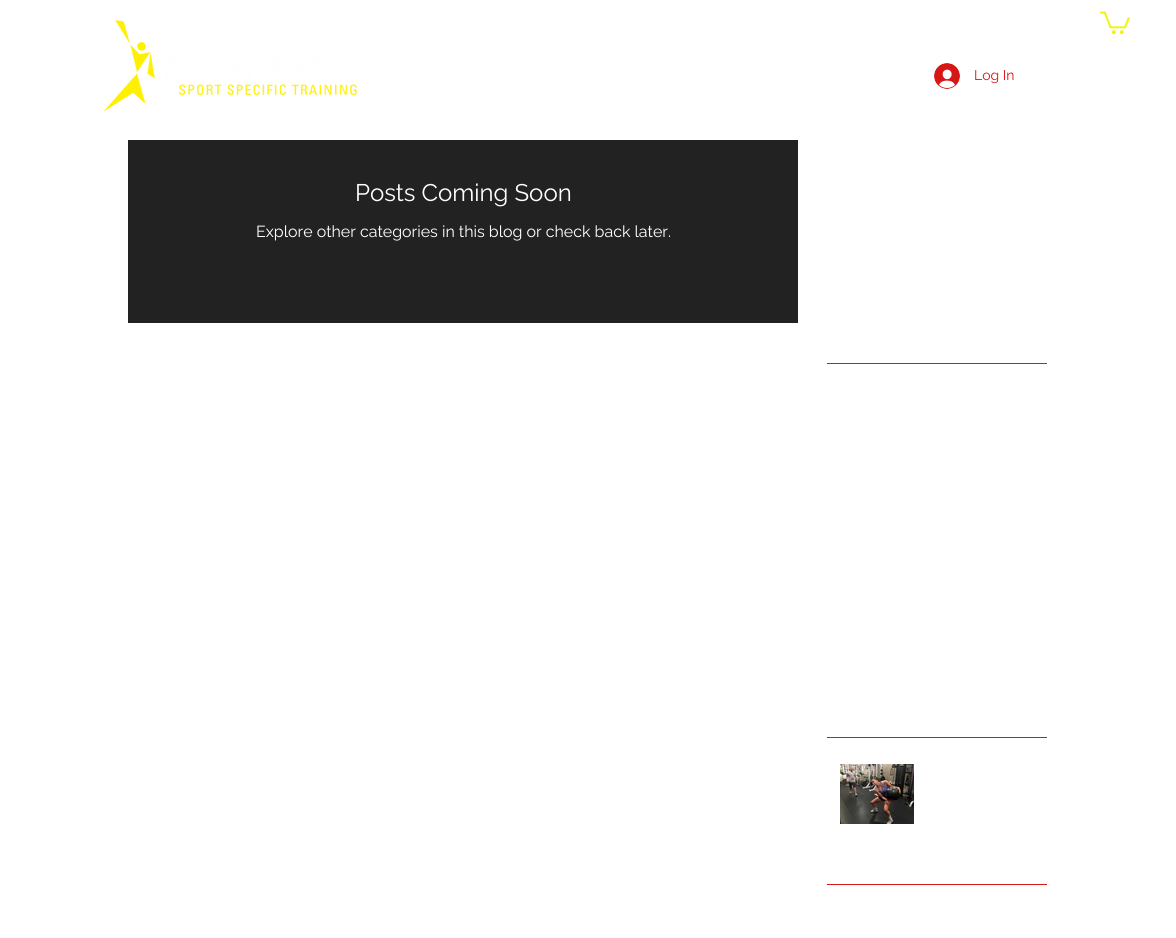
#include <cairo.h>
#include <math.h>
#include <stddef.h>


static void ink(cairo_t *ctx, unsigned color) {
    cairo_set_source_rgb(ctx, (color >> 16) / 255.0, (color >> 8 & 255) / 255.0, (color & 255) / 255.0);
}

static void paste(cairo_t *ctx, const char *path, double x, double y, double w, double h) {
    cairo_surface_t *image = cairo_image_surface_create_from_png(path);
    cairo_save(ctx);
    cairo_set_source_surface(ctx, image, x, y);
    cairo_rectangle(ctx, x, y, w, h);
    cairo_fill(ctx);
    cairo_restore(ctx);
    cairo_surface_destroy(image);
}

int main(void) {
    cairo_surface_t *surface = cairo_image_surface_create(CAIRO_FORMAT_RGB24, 1176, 938);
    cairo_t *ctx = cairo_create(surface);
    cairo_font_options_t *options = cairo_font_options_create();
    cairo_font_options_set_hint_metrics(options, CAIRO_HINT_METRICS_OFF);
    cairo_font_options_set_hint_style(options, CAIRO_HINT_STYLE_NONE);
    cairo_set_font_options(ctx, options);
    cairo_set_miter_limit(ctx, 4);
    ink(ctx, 0xFFFFFF);
    cairo_paint(ctx);
    paste(ctx, "media/1.png", 103, 19, 254, 93);
    paste(ctx, "media/2.png", 1100, 11, 30, 24);
    paste(ctx, "media/3.png", 934, 63, 26, 26);
    cairo_select_font_face(ctx, "Raleway", CAIRO_FONT_SLANT_NORMAL, CAIRO_FONT_WEIGHT_NORMAL);
    cairo_set_font_size(ctx, 14);
    ink(ctx, 0xD71616);
    cairo_move_to(ctx, 974, 80);
    cairo_show_text(ctx, "Log In");
    ink(ctx, 0x222222);
    cairo_rectangle(ctx, 128, 140, 670, 183);
    cairo_fill(ctx);
    cairo_set_font_size(ctx, 24);
    ink(ctx, 0xFFFFFF);
    cairo_move_to(ctx, 355, 201);
    cairo_show_text(ctx, "Posts Coming Soon");
    cairo_set_font_size(ctx, 16);
    cairo_move_to(ctx, 256, 237);
    cairo_show_text(ctx, "Explore other categories in this blog or check back later.");
    ink(ctx, 0xD71616);
    cairo_rectangle(ctx, 827, 363, 220, 1);
    cairo_fill(ctx);
    cairo_rectangle(ctx, 827, 737, 220, 1);
    cairo_fill(ctx);
    paste(ctx, "media/4.png", 840, 764, 74, 60);
    cairo_rectangle(ctx, 827, 884, 220, 1);
    cairo_fill(ctx);
    cairo_surface_write_to_png(surface, "image.png");
    cairo_font_options_destroy(options);
    cairo_destroy(ctx);
    cairo_surface_destroy(surface);
    return 0;
}
